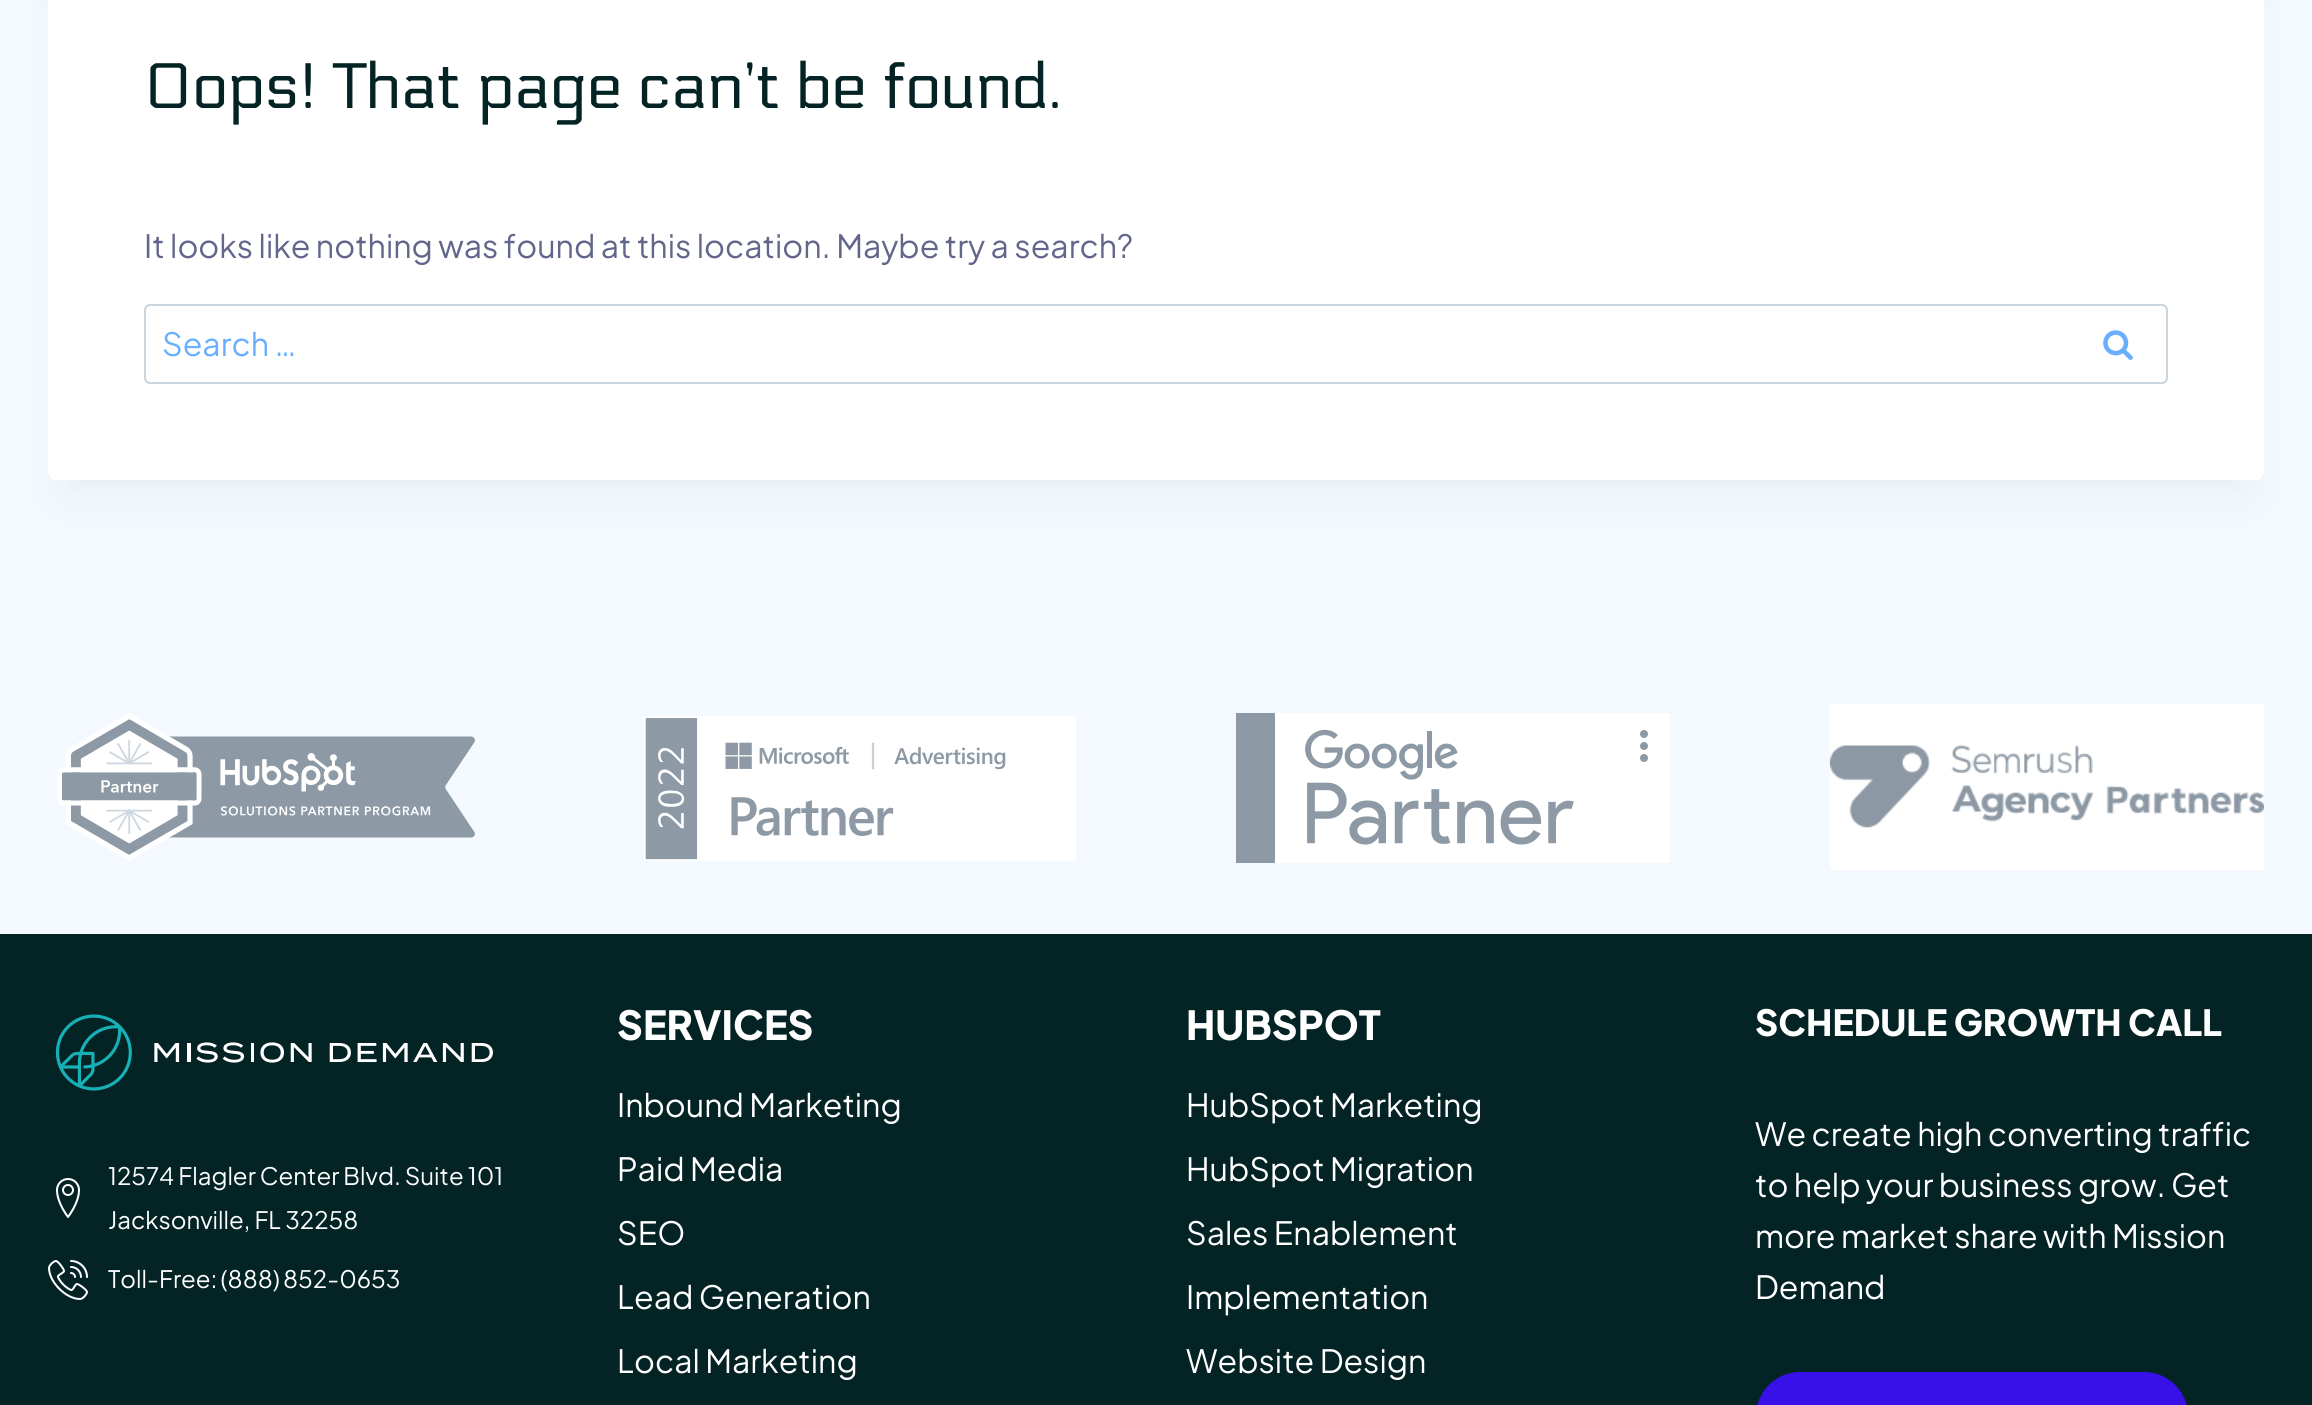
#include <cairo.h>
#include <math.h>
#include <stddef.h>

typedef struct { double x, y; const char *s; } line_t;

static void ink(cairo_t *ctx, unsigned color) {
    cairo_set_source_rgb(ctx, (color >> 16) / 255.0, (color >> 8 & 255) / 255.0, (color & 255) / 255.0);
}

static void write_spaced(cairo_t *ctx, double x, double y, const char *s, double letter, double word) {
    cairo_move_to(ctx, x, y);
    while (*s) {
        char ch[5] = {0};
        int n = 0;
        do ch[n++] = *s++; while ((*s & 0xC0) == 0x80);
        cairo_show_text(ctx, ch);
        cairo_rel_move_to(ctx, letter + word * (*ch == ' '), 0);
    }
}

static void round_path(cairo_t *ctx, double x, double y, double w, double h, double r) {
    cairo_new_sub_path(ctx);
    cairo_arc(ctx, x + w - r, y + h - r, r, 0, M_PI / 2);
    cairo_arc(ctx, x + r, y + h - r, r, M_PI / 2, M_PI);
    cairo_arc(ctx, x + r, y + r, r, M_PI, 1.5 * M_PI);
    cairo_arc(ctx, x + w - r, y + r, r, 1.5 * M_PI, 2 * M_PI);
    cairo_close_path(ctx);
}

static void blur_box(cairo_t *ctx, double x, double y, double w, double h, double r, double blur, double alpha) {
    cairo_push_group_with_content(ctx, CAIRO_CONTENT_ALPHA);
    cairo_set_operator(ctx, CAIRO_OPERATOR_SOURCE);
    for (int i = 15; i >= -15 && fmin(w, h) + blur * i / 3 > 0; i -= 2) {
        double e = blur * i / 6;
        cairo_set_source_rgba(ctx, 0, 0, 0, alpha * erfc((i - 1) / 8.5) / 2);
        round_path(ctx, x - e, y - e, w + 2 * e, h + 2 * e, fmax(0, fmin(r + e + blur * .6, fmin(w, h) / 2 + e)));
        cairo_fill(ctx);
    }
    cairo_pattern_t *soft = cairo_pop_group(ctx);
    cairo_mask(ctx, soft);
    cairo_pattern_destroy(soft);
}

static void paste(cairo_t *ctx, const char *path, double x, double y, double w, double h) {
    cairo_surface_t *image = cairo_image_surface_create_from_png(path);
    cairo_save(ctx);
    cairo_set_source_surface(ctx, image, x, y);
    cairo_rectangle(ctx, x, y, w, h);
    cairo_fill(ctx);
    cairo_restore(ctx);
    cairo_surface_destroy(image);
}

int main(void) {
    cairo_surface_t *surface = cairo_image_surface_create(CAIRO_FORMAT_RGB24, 2312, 1405);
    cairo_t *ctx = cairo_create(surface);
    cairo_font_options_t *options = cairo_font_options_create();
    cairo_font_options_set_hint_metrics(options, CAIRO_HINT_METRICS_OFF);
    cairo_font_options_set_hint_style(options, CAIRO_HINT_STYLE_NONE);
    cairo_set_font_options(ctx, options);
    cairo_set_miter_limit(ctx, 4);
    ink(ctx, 0xF4F9FF);
    cairo_paint(ctx);
    ink(ctx, 0x000000);
    blur_box(ctx, 68, -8, 2176, 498, 0, 25, 0.05);
    ink(ctx, 0xFFFFFF);
    round_path(ctx, 48, -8, 2216, 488, 8);
    cairo_fill(ctx);
    cairo_select_font_face(ctx, "Electrolize", CAIRO_FONT_SLANT_NORMAL, CAIRO_FONT_WEIGHT_NORMAL);
    cairo_set_font_size(ctx, 64);
    ink(ctx, 0x042324);
    cairo_move_to(ctx, 144, 108);
    cairo_show_text(ctx, "Oops! That page can’t be found.");
    cairo_select_font_face(ctx, "Plus Jakarta Sans", CAIRO_FONT_SLANT_NORMAL, CAIRO_FONT_WEIGHT_NORMAL);
    cairo_set_font_size(ctx, 32);
    ink(ctx, 0x62668A);
    cairo_move_to(ctx, 144, 258);
    cairo_show_text(ctx, "It looks like nothing was found at this location. Maybe try a search?");
    round_path(ctx, 145, 305, 2022, 78, 5);
    ink(ctx, 0xCBD5E0);
    cairo_stroke(ctx);
    ink(ctx, 0x69AEFF);
    cairo_move_to(ctx, 162, 356);
    cairo_show_text(ctx, "Search …");
    paste(ctx, "media/1.png", 2103, 330, 30, 30);
    paste(ctx, "media/2.png", 57, 713, 418, 148);
    paste(ctx, "media/3.png", 643, 716, 433, 145);
    paste(ctx, "media/4.png", 1236, 713, 434, 150);
    paste(ctx, "media/5.png", 1830, 704, 434, 166);
    ink(ctx, 0x042324);
    cairo_rectangle(ctx, 0, 934, 2312, 471);
    cairo_fill(ctx);
    paste(ctx, "media/6.png", 55, 1014, 438, 77);
    paste(ctx, "media/7.png", 56, 1178, 24, 40);
    cairo_set_font_size(ctx, 24);
    ink(ctx, 0xFFFFFF);
    cairo_move_to(ctx, 108, 1185);
    cairo_show_text(ctx, "12574 Flagler Center Blvd. Suite 101");
    cairo_move_to(ctx, 108, 1229);
    cairo_show_text(ctx, "Jacksonville, FL 32258");
    paste(ctx, "media/8.png", 48, 1260, 40, 40);
    write_spaced(ctx, 108, 1288, "Toll-Free: (888) 852-0653", 0, -1);
    cairo_select_font_face(ctx, "Plus Jakarta Sans ExtraBold", CAIRO_FONT_SLANT_NORMAL, CAIRO_FONT_WEIGHT_NORMAL);
    cairo_set_font_size(ctx, 40);
    cairo_move_to(ctx, 617, 1040);
    cairo_show_text(ctx, "SERVICES");
    cairo_select_font_face(ctx, "Plus Jakarta Sans", CAIRO_FONT_SLANT_NORMAL, CAIRO_FONT_WEIGHT_NORMAL);
    cairo_set_font_size(ctx, 32);
    {
        static const line_t items[] = {
            {617, 1117, "Inbound Marketing"},
            {617, 1181, "Paid Media"},
            {617, 1245, "SEO"},
            {617, 1309, "Lead Generation"},
            {617, 1373, "Local Marketing"},
        };
        for (size_t i = 0; i < sizeof items / sizeof *items; i++) {
            cairo_move_to(ctx, items[i].x, items[i].y);
            cairo_show_text(ctx, items[i].s);
        }
    }
    cairo_select_font_face(ctx, "Plus Jakarta Sans ExtraBold", CAIRO_FONT_SLANT_NORMAL, CAIRO_FONT_WEIGHT_NORMAL);
    cairo_set_font_size(ctx, 40);
    cairo_move_to(ctx, 1186, 1040);
    cairo_show_text(ctx, "HUBSPOT");
    cairo_select_font_face(ctx, "Plus Jakarta Sans", CAIRO_FONT_SLANT_NORMAL, CAIRO_FONT_WEIGHT_NORMAL);
    cairo_set_font_size(ctx, 32);
    {
        static const line_t items[] = {
            {1186, 1117, "HubSpot Marketing"},
            {1186, 1181, "HubSpot Migration"},
            {1186, 1245, "Sales Enablement"},
            {1186, 1309, "Implementation"},
            {1186, 1373, "Website Design"},
        };
        for (size_t i = 0; i < sizeof items / sizeof *items; i++) {
            cairo_move_to(ctx, items[i].x, items[i].y);
            cairo_show_text(ctx, items[i].s);
        }
    }
    cairo_select_font_face(ctx, "Plus Jakarta Sans ExtraBold", CAIRO_FONT_SLANT_NORMAL, CAIRO_FONT_WEIGHT_NORMAL);
    cairo_set_font_size(ctx, 36);
    cairo_move_to(ctx, 1755, 1036);
    cairo_show_text(ctx, "SCHEDULE GROWTH CALL");
    cairo_select_font_face(ctx, "Plus Jakarta Sans", CAIRO_FONT_SLANT_NORMAL, CAIRO_FONT_WEIGHT_NORMAL);
    cairo_set_font_size(ctx, 32);
    {
        static const line_t items[] = {
            {1755, 1146, "We create high converting traffic"},
            {1755, 1197, "to help your business grow. Get"},
            {1755, 1248, "more market share with Mission"},
            {1755, 1299, "Demand"},
        };
        for (size_t i = 0; i < sizeof items / sizeof *items; i++) {
            cairo_move_to(ctx, items[i].x, items[i].y);
            cairo_show_text(ctx, items[i].s);
        }
    }
    ink(ctx, 0x3811E8);
    round_path(ctx, 1756, 1372, 432, 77, 44);
    cairo_fill(ctx);
    cairo_surface_write_to_png(surface, "image.png");
    cairo_font_options_destroy(options);
    cairo_destroy(ctx);
    cairo_surface_destroy(surface);
    return 0;
}
